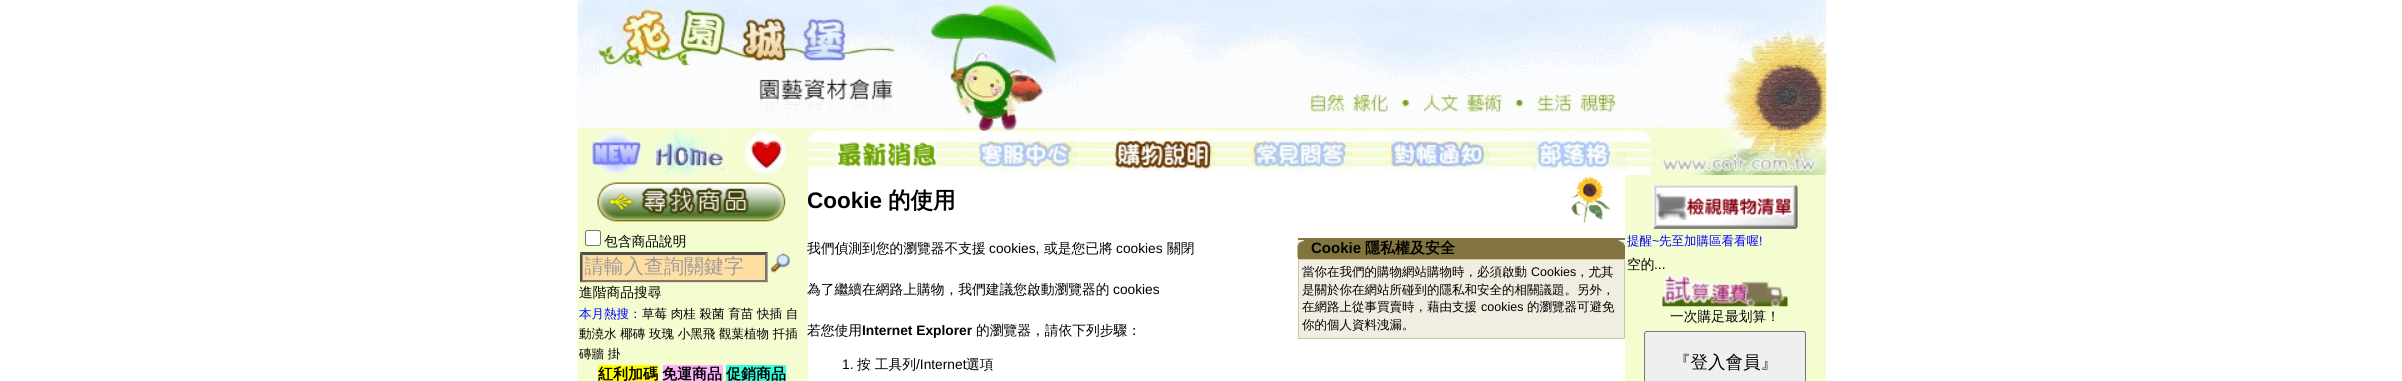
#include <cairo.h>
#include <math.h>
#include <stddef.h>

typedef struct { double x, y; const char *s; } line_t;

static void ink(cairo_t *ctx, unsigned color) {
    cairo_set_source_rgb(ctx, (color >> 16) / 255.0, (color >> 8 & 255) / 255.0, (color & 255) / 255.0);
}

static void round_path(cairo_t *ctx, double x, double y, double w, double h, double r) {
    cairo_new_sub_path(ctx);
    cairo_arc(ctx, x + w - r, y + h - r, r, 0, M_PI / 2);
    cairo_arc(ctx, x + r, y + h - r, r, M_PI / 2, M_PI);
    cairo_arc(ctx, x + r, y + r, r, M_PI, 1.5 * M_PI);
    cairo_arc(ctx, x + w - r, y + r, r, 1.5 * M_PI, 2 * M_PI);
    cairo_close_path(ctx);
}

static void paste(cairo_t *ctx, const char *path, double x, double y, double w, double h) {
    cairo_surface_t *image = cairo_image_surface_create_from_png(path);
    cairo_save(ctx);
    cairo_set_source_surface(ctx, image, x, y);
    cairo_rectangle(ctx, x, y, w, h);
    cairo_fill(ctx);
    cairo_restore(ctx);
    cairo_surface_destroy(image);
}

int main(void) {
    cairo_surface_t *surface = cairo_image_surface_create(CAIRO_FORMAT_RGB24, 2402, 381);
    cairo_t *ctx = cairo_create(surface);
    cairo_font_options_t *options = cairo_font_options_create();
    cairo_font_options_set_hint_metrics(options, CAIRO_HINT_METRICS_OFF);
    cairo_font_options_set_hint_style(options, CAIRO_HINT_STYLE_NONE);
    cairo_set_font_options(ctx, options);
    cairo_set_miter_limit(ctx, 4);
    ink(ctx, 0xFFFFFF);
    cairo_paint(ctx);
    paste(ctx, "media/1.png", 577, 0, 1250, 132);
    paste(ctx, "media/2.png", 577, 131, 76, 44);
    paste(ctx, "media/3.png", 652, 131, 76, 44);
    paste(ctx, "media/4.png", 727, 131, 76, 44);
    paste(ctx, "media/5.png", 802, 131, 138, 44);
    paste(ctx, "media/6.png", 940, 131, 138, 41);
    paste(ctx, "media/7.png", 1077, 131, 138, 41);
    paste(ctx, "media/8.png", 1215, 131, 138, 41);
    paste(ctx, "media/9.png", 1352, 131, 138, 41);
    paste(ctx, "media/10.png", 1490, 131, 138, 41);
    paste(ctx, "media/11.png", 1627, 131, 200, 44);
    ink(ctx, 0xF4FDD0);
    cairo_rectangle(ctx, 578, 175, 230, 206);
    cairo_fill(ctx);
    ink(ctx, 0xF9FEE7);
    cairo_rectangle(ctx, 577, 175, 1, 206);
    cairo_fill(ctx);
    paste(ctx, "media/12.png", 597, 182, 189, 40);
    ink(ctx, 0xFFFFFF);
    round_path(ctx, 585.5, 230.5, 15, 15, 2);
    cairo_fill_preserve(ctx);
    ink(ctx, 0x767676);
    cairo_set_line_width(ctx, 1);
    cairo_stroke(ctx);
    cairo_select_font_face(ctx, "WenQuanYi Zen Hei Medium", CAIRO_FONT_SLANT_NORMAL, CAIRO_FONT_WEIGHT_NORMAL);
    cairo_set_font_size(ctx, 13.75);
    ink(ctx, 0x000000);
    cairo_move_to(ctx, 604, 246);
    cairo_show_text(ctx, "包含商品說明");
    ink(ctx, 0xFFDEA1);
    cairo_rectangle(ctx, 580, 253, 188, 30);
    cairo_fill(ctx);
    ink(ctx, 0x4F4F4F);
    cairo_new_path(ctx);
    cairo_move_to(ctx, 580, 252);
    cairo_line_to(ctx, 768, 252);
    cairo_line_to(ctx, 765, 255);
    cairo_line_to(ctx, 582, 255);
    cairo_close_path(ctx);
    cairo_fill(ctx);
    ink(ctx, 0x767676);
    cairo_new_path(ctx);
    cairo_move_to(ctx, 767.5, 252.5);
    cairo_line_to(ctx, 767.5, 282.5);
    cairo_line_to(ctx, 765, 280);
    cairo_line_to(ctx, 765, 255);
    cairo_close_path(ctx);
    cairo_fill(ctx);
    cairo_new_path(ctx);
    cairo_move_to(ctx, 768, 282);
    cairo_line_to(ctx, 580, 282);
    cairo_line_to(ctx, 582, 280);
    cairo_line_to(ctx, 765, 280);
    cairo_close_path(ctx);
    cairo_fill(ctx);
    ink(ctx, 0x4F4F4F);
    cairo_new_path(ctx);
    cairo_move_to(ctx, 580, 282.5);
    cairo_line_to(ctx, 580, 252.5);
    cairo_line_to(ctx, 582.5, 255);
    cairo_line_to(ctx, 582.5, 280);
    cairo_close_path(ctx);
    cairo_fill(ctx);
    cairo_save(ctx);
    cairo_rectangle(ctx, 585, 255, 178, 25);
    cairo_clip(ctx);
    cairo_set_font_size(ctx, 20);
    ink(ctx, 0x9D9D9D);
    cairo_move_to(ctx, 584, 273);
    cairo_show_text(ctx, "請輸入查詢關鍵字");
    cairo_restore(ctx);
    paste(ctx, "media/13.png", 771, 253, 19, 20);
    ink(ctx, 0x000000);
    cairo_move_to(ctx, 579, 297);
    cairo_show_text(ctx, "進階商品搜尋");
    cairo_set_font_size(ctx, 12.5);
    ink(ctx, 0x0000FF);
    cairo_move_to(ctx, 579, 318);
    cairo_show_text(ctx, "本月熱搜：");
    ink(ctx, 0x000000);
    {
        static const line_t items[] = {
            {642, 318, "草莓 肉桂 殺菌 育苗 快插 自"},
            {579, 338, "動澆水 椰磚 玫瑰 小黑飛 觀葉植物 扦插"},
            {579, 358, "磚牆 掛"},
        };
        for (size_t i = 0; i < sizeof items / sizeof *items; i++) {
            cairo_move_to(ctx, items[i].x, items[i].y);
            cairo_show_text(ctx, items[i].s);
        }
    }
    ink(ctx, 0xFFFF00);
    cairo_rectangle(ctx, 598, 365, 60, 16);
    cairo_fill(ctx);
    cairo_select_font_face(ctx, "WenQuanYi Zen Hei", CAIRO_FONT_SLANT_NORMAL, CAIRO_FONT_WEIGHT_BOLD);
    cairo_set_font_size(ctx, 15);
    ink(ctx, 0x000000);
    cairo_move_to(ctx, 598, 379);
    cairo_show_text(ctx, "紅利加碼");
    ink(ctx, 0xFFB3FF);
    cairo_rectangle(ctx, 663, 365, 60, 16);
    cairo_fill(ctx);
    ink(ctx, 0x000000);
    cairo_move_to(ctx, 662, 379);
    cairo_show_text(ctx, "免運商品");
    ink(ctx, 0x33FFDD);
    cairo_rectangle(ctx, 726, 365, 60, 16);
    cairo_fill(ctx);
    ink(ctx, 0x000000);
    cairo_move_to(ctx, 726, 379);
    cairo_show_text(ctx, "促銷商品");
    cairo_select_font_face(ctx, "Liberation Sans", CAIRO_FONT_SLANT_NORMAL, CAIRO_FONT_WEIGHT_BOLD);
    cairo_set_font_size(ctx, 22.5);
    cairo_move_to(ctx, 807, 208);
    cairo_show_text(ctx, "Cookie");
    cairo_select_font_face(ctx, "WenQuanYi Zen Hei", CAIRO_FONT_SLANT_NORMAL, CAIRO_FONT_WEIGHT_BOLD);
    cairo_move_to(ctx, 888, 208);
    cairo_show_text(ctx, "的使用");
    paste(ctx, "media/14.png", 1570, 176, 41, 47);
    cairo_select_font_face(ctx, "WenQuanYi Zen Hei Medium", CAIRO_FONT_SLANT_NORMAL, CAIRO_FONT_WEIGHT_NORMAL);
    cairo_set_font_size(ctx, 13.75);
    cairo_move_to(ctx, 807, 253);
    cairo_show_text(ctx, "我們偵測到您的瀏覽器不支援");
    cairo_select_font_face(ctx, "Liberation Sans", CAIRO_FONT_SLANT_NORMAL, CAIRO_FONT_WEIGHT_NORMAL);
    cairo_move_to(ctx, 989, 253);
    cairo_show_text(ctx, "cookies,");
    cairo_select_font_face(ctx, "WenQuanYi Zen Hei Medium", CAIRO_FONT_SLANT_NORMAL, CAIRO_FONT_WEIGHT_NORMAL);
    cairo_move_to(ctx, 1044, 253);
    cairo_show_text(ctx, "或是您已將");
    cairo_select_font_face(ctx, "Liberation Sans", CAIRO_FONT_SLANT_NORMAL, CAIRO_FONT_WEIGHT_NORMAL);
    cairo_move_to(ctx, 1116, 253);
    cairo_show_text(ctx, "cookies");
    cairo_select_font_face(ctx, "WenQuanYi Zen Hei Medium", CAIRO_FONT_SLANT_NORMAL, CAIRO_FONT_WEIGHT_NORMAL);
    cairo_move_to(ctx, 1167, 253);
    cairo_show_text(ctx, "關閉");
    ink(ctx, 0x82743E);
    cairo_rectangle(ctx, 1298, 238, 327, 21);
    cairo_fill(ctx);
    paste(ctx, "media/15.png", 1297, 240, 7, 18);
    cairo_select_font_face(ctx, "Liberation Sans", CAIRO_FONT_SLANT_NORMAL, CAIRO_FONT_WEIGHT_BOLD);
    cairo_set_font_size(ctx, 15);
    ink(ctx, 0x000000);
    cairo_move_to(ctx, 1311, 253);
    cairo_show_text(ctx, "Cookie");
    cairo_select_font_face(ctx, "WenQuanYi Zen Hei", CAIRO_FONT_SLANT_NORMAL, CAIRO_FONT_WEIGHT_BOLD);
    cairo_move_to(ctx, 1365, 253);
    cairo_show_text(ctx, "隱私權及安全");
    paste(ctx, "media/16.png", 1618, 240, 7, 6);
    ink(ctx, 0xCFC5A0);
    cairo_rectangle(ctx, 1298, 259, 327, 80);
    cairo_fill(ctx);
    ink(ctx, 0xF0EDE1);
    cairo_rectangle(ctx, 1299, 260, 325, 78);
    cairo_fill(ctx);
    cairo_select_font_face(ctx, "WenQuanYi Zen Hei Medium", CAIRO_FONT_SLANT_NORMAL, CAIRO_FONT_WEIGHT_NORMAL);
    cairo_set_font_size(ctx, 12.5);
    ink(ctx, 0x000000);
    cairo_move_to(ctx, 1302, 276);
    cairo_show_text(ctx, "當你在我們的購物網站購物時，必須啟動");
    cairo_select_font_face(ctx, "Liberation Sans", CAIRO_FONT_SLANT_NORMAL, CAIRO_FONT_WEIGHT_NORMAL);
    cairo_move_to(ctx, 1531, 276);
    cairo_show_text(ctx, "Cookies");
    cairo_select_font_face(ctx, "WenQuanYi Zen Hei Medium", CAIRO_FONT_SLANT_NORMAL, CAIRO_FONT_WEIGHT_NORMAL);
    {
        static const line_t items[] = {
            {1576, 276, "，尤其"},
            {1302, 294, "是關於你在網站所碰到的隱私和安全的相關議題。另外，"},
            {1302, 311, "在網路上從事買賣時，藉由支援"},
        };
        for (size_t i = 0; i < sizeof items / sizeof *items; i++) {
            cairo_move_to(ctx, items[i].x, items[i].y);
            cairo_show_text(ctx, items[i].s);
        }
    }
    cairo_select_font_face(ctx, "Liberation Sans", CAIRO_FONT_SLANT_NORMAL, CAIRO_FONT_WEIGHT_NORMAL);
    cairo_move_to(ctx, 1481, 311);
    cairo_show_text(ctx, "cookies");
    cairo_select_font_face(ctx, "WenQuanYi Zen Hei Medium", CAIRO_FONT_SLANT_NORMAL, CAIRO_FONT_WEIGHT_NORMAL);
    cairo_move_to(ctx, 1527, 311);
    cairo_show_text(ctx, "的瀏覽器可避免");
    cairo_move_to(ctx, 1302, 329);
    cairo_show_text(ctx, "你的個人資料洩漏。");
    cairo_set_font_size(ctx, 13.75);
    cairo_move_to(ctx, 807, 294);
    cairo_show_text(ctx, "為了繼續在網路上購物，我們建議您啟動瀏覽器的");
    cairo_select_font_face(ctx, "Liberation Sans", CAIRO_FONT_SLANT_NORMAL, CAIRO_FONT_WEIGHT_NORMAL);
    cairo_move_to(ctx, 1113, 294);
    cairo_show_text(ctx, "cookies");
    cairo_select_font_face(ctx, "WenQuanYi Zen Hei Medium", CAIRO_FONT_SLANT_NORMAL, CAIRO_FONT_WEIGHT_NORMAL);
    cairo_move_to(ctx, 807, 335);
    cairo_show_text(ctx, "若您使用");
    cairo_select_font_face(ctx, "Liberation Sans", CAIRO_FONT_SLANT_NORMAL, CAIRO_FONT_WEIGHT_BOLD);
    cairo_move_to(ctx, 862, 335);
    cairo_show_text(ctx, "Internet Explorer");
    cairo_select_font_face(ctx, "WenQuanYi Zen Hei Medium", CAIRO_FONT_SLANT_NORMAL, CAIRO_FONT_WEIGHT_NORMAL);
    cairo_move_to(ctx, 976, 335);
    cairo_show_text(ctx, "的瀏覽器，請依下列步驟：");
    cairo_select_font_face(ctx, "Liberation Sans", CAIRO_FONT_SLANT_NORMAL, CAIRO_FONT_WEIGHT_NORMAL);
    cairo_move_to(ctx, 842, 369);
    cairo_show_text(ctx, "1.");
    cairo_select_font_face(ctx, "WenQuanYi Zen Hei Medium", CAIRO_FONT_SLANT_NORMAL, CAIRO_FONT_WEIGHT_NORMAL);
    cairo_move_to(ctx, 857, 369);
    cairo_show_text(ctx, "按 工具列");
    cairo_select_font_face(ctx, "Liberation Sans", CAIRO_FONT_SLANT_NORMAL, CAIRO_FONT_WEIGHT_NORMAL);
    cairo_move_to(ctx, 916, 369);
    cairo_show_text(ctx, "/Internet");
    cairo_select_font_face(ctx, "WenQuanYi Zen Hei Medium", CAIRO_FONT_SLANT_NORMAL, CAIRO_FONT_WEIGHT_NORMAL);
    cairo_move_to(ctx, 966, 369);
    cairo_show_text(ctx, "選項");
    ink(ctx, 0xF4FDD0);
    cairo_rectangle(ctx, 1625, 175, 201, 206);
    cairo_fill(ctx);
    paste(ctx, "media/17.png", 1652, 184, 146, 45);
    cairo_set_font_size(ctx, 12.5);
    ink(ctx, 0x0000FF);
    cairo_move_to(ctx, 1627, 245);
    cairo_show_text(ctx, "提醒");
    cairo_select_font_face(ctx, "Liberation Sans", CAIRO_FONT_SLANT_NORMAL, CAIRO_FONT_WEIGHT_NORMAL);
    cairo_move_to(ctx, 1652, 245);
    cairo_show_text(ctx, "~");
    cairo_select_font_face(ctx, "WenQuanYi Zen Hei Medium", CAIRO_FONT_SLANT_NORMAL, CAIRO_FONT_WEIGHT_NORMAL);
    cairo_move_to(ctx, 1659, 245);
    cairo_show_text(ctx, "先至加購區看看喔");
    cairo_select_font_face(ctx, "Liberation Sans", CAIRO_FONT_SLANT_NORMAL, CAIRO_FONT_WEIGHT_NORMAL);
    cairo_move_to(ctx, 1759, 245);
    cairo_show_text(ctx, "!");
    cairo_select_font_face(ctx, "WenQuanYi Zen Hei Medium", CAIRO_FONT_SLANT_NORMAL, CAIRO_FONT_WEIGHT_NORMAL);
    cairo_set_font_size(ctx, 13.75);
    ink(ctx, 0x000000);
    cairo_move_to(ctx, 1627, 269);
    cairo_show_text(ctx, "空的");
    cairo_select_font_face(ctx, "Liberation Sans", CAIRO_FONT_SLANT_NORMAL, CAIRO_FONT_WEIGHT_NORMAL);
    cairo_move_to(ctx, 1654, 269);
    cairo_show_text(ctx, "...");
    paste(ctx, "media/18.png", 1662, 275, 126, 32);
    cairo_select_font_face(ctx, "WenQuanYi Zen Hei Medium", CAIRO_FONT_SLANT_NORMAL, CAIRO_FONT_WEIGHT_NORMAL);
    cairo_move_to(ctx, 1670, 321);
    cairo_show_text(ctx, "一次購足最划算！");
    ink(ctx, 0xEFEFEF);
    round_path(ctx, 1644.5, 331.5, 161, 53, 2);
    cairo_fill_preserve(ctx);
    ink(ctx, 0x767676);
    cairo_stroke(ctx);
    cairo_set_font_size(ctx, 17.5);
    ink(ctx, 0x000000);
    cairo_move_to(ctx, 1673, 368);
    cairo_show_text(ctx, "『登入會員』");
    cairo_surface_write_to_png(surface, "image.png");
    cairo_font_options_destroy(options);
    cairo_destroy(ctx);
    cairo_surface_destroy(surface);
    return 0;
}
